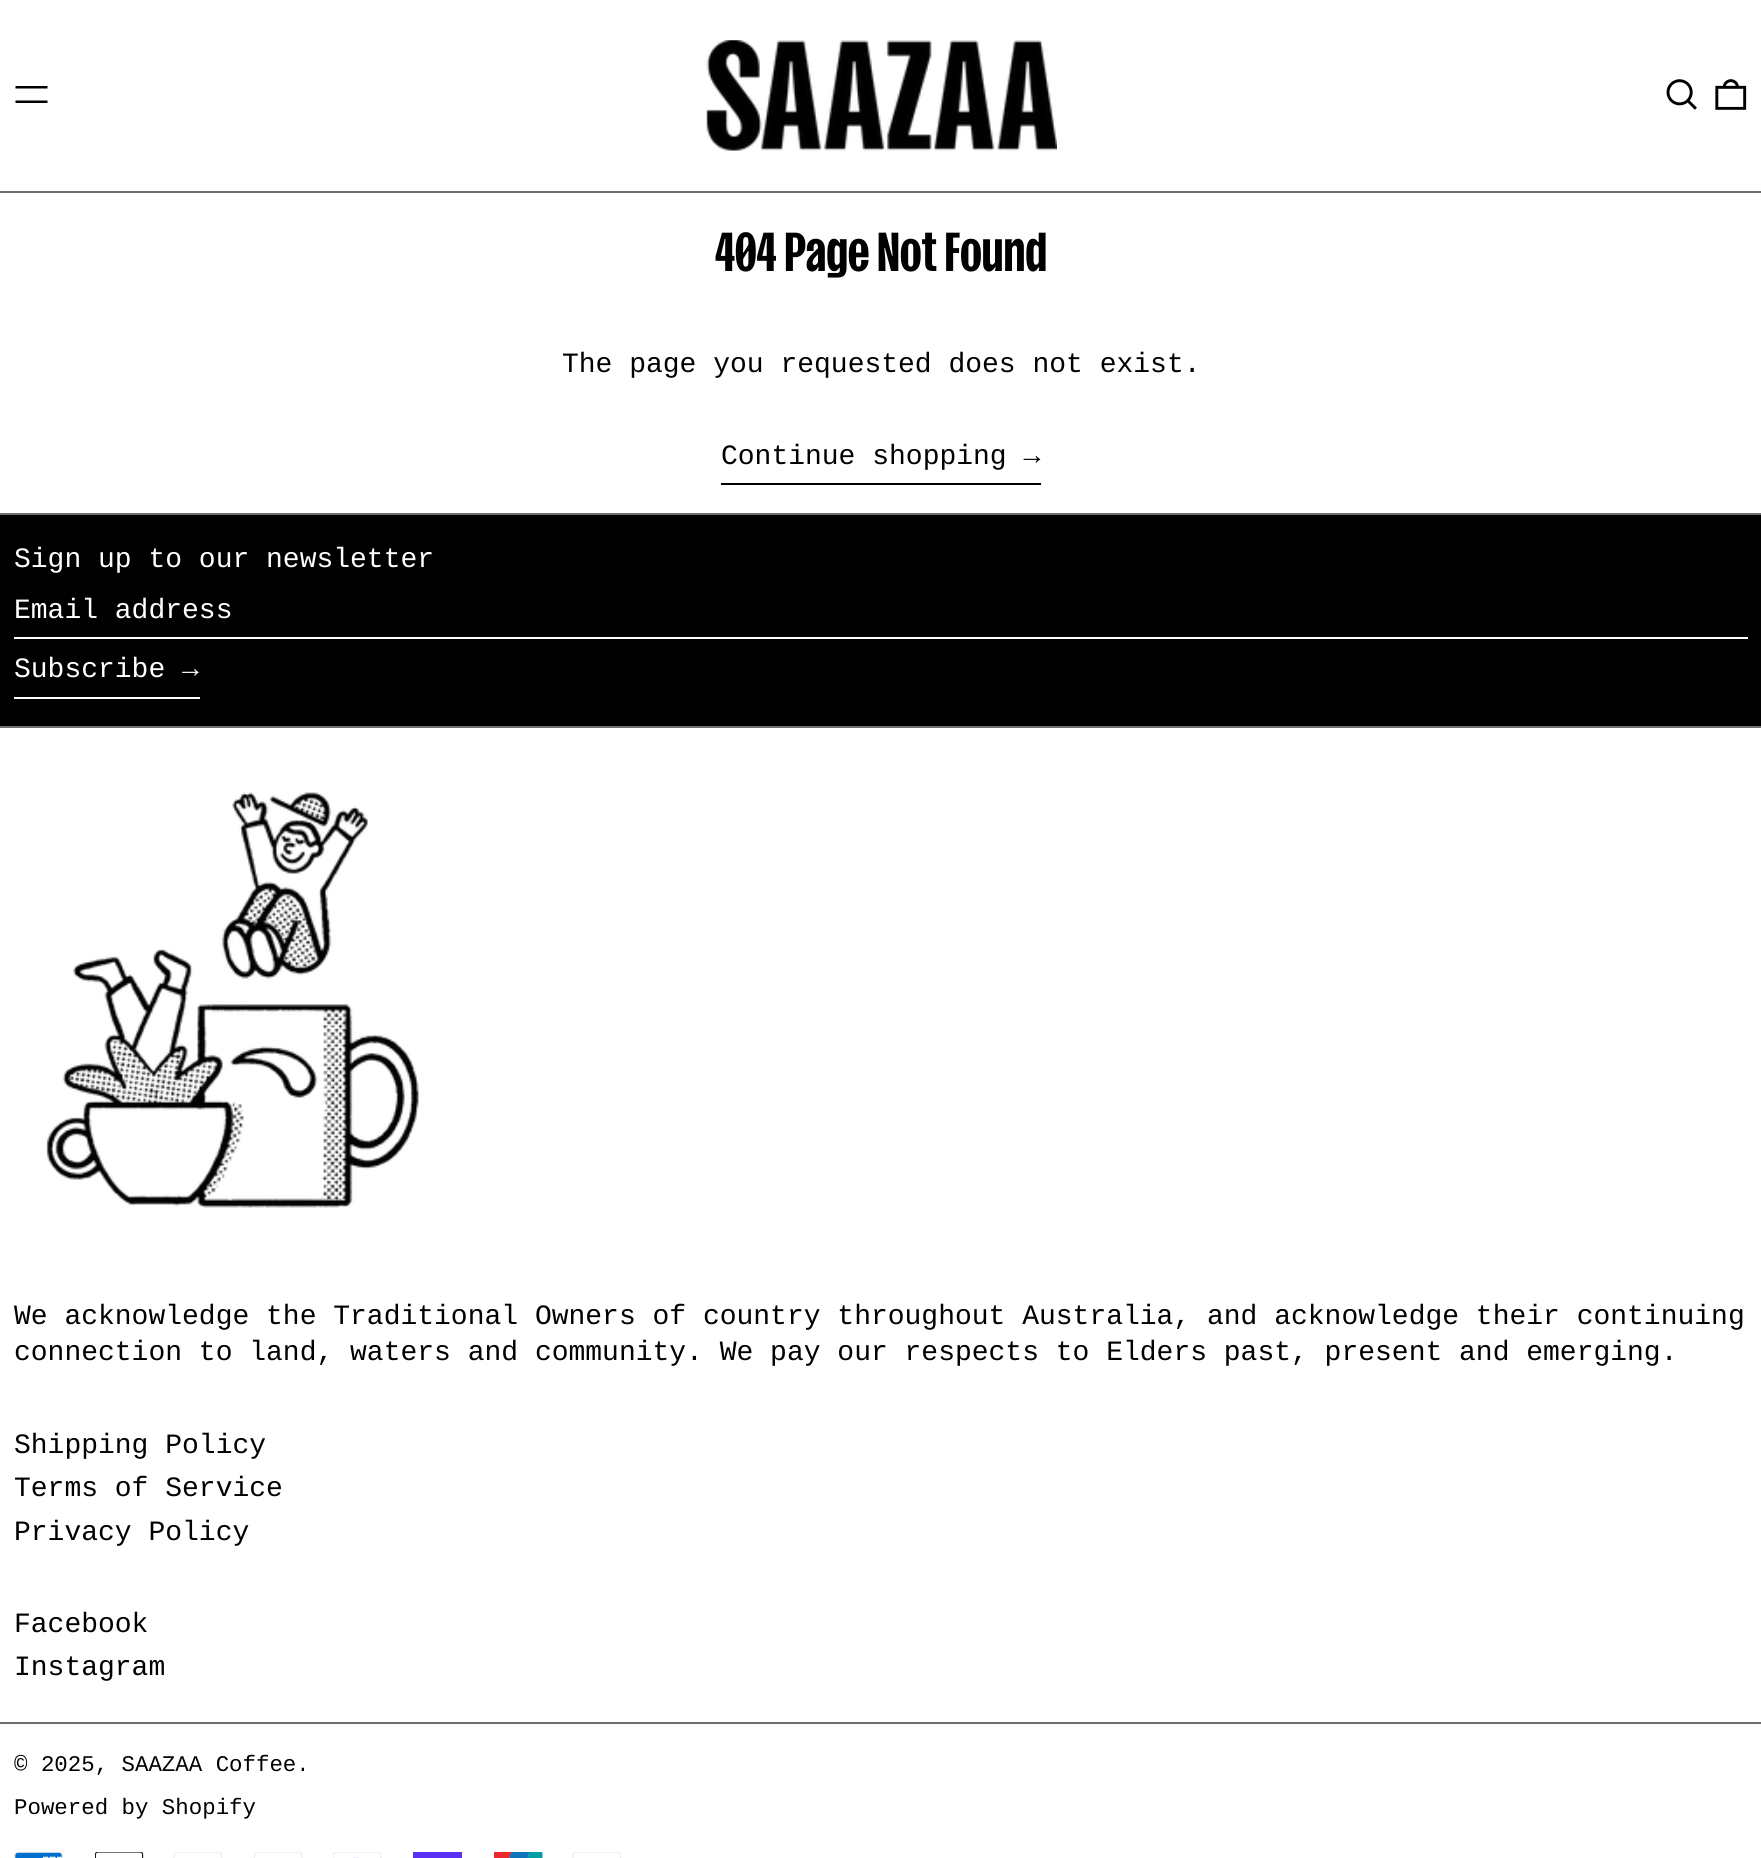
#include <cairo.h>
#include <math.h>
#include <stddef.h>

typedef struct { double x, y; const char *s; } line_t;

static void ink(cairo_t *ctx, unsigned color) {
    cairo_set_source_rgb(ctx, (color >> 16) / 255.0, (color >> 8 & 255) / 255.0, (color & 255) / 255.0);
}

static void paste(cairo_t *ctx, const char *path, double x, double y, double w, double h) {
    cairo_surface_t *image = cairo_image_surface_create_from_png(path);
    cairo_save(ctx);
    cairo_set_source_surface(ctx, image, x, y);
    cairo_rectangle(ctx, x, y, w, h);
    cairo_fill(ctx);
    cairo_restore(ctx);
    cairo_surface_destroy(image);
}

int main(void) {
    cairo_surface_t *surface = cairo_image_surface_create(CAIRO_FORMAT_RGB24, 1761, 1858);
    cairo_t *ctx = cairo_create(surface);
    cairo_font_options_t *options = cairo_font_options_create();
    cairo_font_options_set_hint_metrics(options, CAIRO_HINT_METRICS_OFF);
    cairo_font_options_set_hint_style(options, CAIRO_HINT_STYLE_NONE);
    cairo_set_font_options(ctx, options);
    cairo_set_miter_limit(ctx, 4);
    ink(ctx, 0xFFFFFF);
    cairo_paint(ctx);
    ink(ctx, 0x6E6E6E);
    cairo_rectangle(ctx, 0, 191, 1761, 2);
    cairo_fill(ctx);
    ink(ctx, 0x000000);
    cairo_set_fill_rule(ctx, CAIRO_FILL_RULE_EVEN_ODD);
    cairo_new_path(ctx);
    cairo_move_to(ctx, 47.5, 100.5);
    cairo_line_to(ctx, 47.5, 103);
    cairo_line_to(ctx, 15.5, 103);
    cairo_line_to(ctx, 15.5, 100.5);
    cairo_close_path(ctx);
    cairo_move_to(ctx, 47.5, 86);
    cairo_line_to(ctx, 47.5, 88.5);
    cairo_line_to(ctx, 15.5, 88.5);
    cairo_line_to(ctx, 15.5, 86);
    cairo_close_path(ctx);
    cairo_fill(ctx);
    paste(ctx, "media/1.png", 706, 40, 351, 111);
    paste(ctx, "media/2.png", 1666, 79, 31, 31);
    paste(ctx, "media/3.png", 1715, 79, 32, 31);
    cairo_select_font_face(ctx, "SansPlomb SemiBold", CAIRO_FONT_SLANT_NORMAL, CAIRO_FONT_WEIGHT_NORMAL);
    cairo_set_font_size(ctx, 54.75);
    cairo_move_to(ctx, 715, 271);
    cairo_show_text(ctx, "404 Page Not Found");
    cairo_select_font_face(ctx, "Liberation Mono", CAIRO_FONT_SLANT_NORMAL, CAIRO_FONT_WEIGHT_NORMAL);
    cairo_set_font_size(ctx, 28);
    cairo_move_to(ctx, 562, 372);
    cairo_show_text(ctx, "The page you requested does not exist.");
    cairo_rectangle(ctx, 721, 483, 320, 2);
    cairo_fill(ctx);
    cairo_move_to(ctx, 721, 464);
    cairo_show_text(ctx, "Continue shopping →");
    cairo_rectangle(ctx, 0, 515, 1761, 211);
    cairo_fill(ctx);
    ink(ctx, 0x6E6E6E);
    cairo_rectangle(ctx, 0, 513, 1761, 2);
    cairo_fill(ctx);
    ink(ctx, 0xFFFFFF);
    cairo_move_to(ctx, 14, 567);
    cairo_show_text(ctx, "Sign up to our newsletter");
    cairo_rectangle(ctx, 14, 637, 1734, 2);
    cairo_fill(ctx);
    cairo_move_to(ctx, 14, 618);
    cairo_show_text(ctx, "Email address");
    cairo_rectangle(ctx, 14, 697, 186, 2);
    cairo_fill(ctx);
    cairo_move_to(ctx, 14, 677);
    cairo_show_text(ctx, "Subscribe →");
    ink(ctx, 0x6E6E6E);
    cairo_rectangle(ctx, 0, 726, 1761, 2);
    cairo_fill(ctx);
    paste(ctx, "media/4.png", 46, 792, 373, 416);
    ink(ctx, 0x000000);
    {
        static const line_t items[] = {
            {14, 1324, "We acknowledge the Traditional Owners of country throughout Australia, and acknowledge their continuing"},
            {14, 1360, "connection to land, waters and community. We pay our respects to Elders past, present and emerging."},
            {14, 1453, "Shipping Policy"},
            {14, 1496, "Terms of Service"},
            {14, 1540, "Privacy Policy"},
            {14, 1632, "Facebook"},
            {14, 1675, "Instagram"},
        };
        for (size_t i = 0; i < sizeof items / sizeof *items; i++) {
            cairo_move_to(ctx, items[i].x, items[i].y);
            cairo_show_text(ctx, items[i].s);
        }
    }
    ink(ctx, 0x6E6E6E);
    cairo_rectangle(ctx, 0, 1722, 1761, 2);
    cairo_fill(ctx);
    cairo_set_font_size(ctx, 22.4);
    ink(ctx, 0x000000);
    cairo_move_to(ctx, 14, 1771);
    cairo_show_text(ctx, "© 2025, SAAZAA Coffee.");
    cairo_move_to(ctx, 14, 1814);
    cairo_show_text(ctx, "Powered by Shopify");
    paste(ctx, "media/5.png", 14, 1852, 49, 6);
    paste(ctx, "media/6.png", 95, 1852, 49, 6);
    paste(ctx, "media/7.png", 173, 1852, 49, 6);
    paste(ctx, "media/8.png", 254, 1852, 49, 6);
    paste(ctx, "media/9.png", 333, 1852, 49, 6);
    ink(ctx, 0x5A31F4);
    cairo_rectangle(ctx, 413, 1852, 49, 6);
    cairo_fill(ctx);
    paste(ctx, "media/10.png", 494, 1852, 49, 6);
    paste(ctx, "media/7.png", 572, 1852, 49, 6);
    cairo_surface_write_to_png(surface, "image.png");
    cairo_font_options_destroy(options);
    cairo_destroy(ctx);
    cairo_surface_destroy(surface);
    return 0;
}
